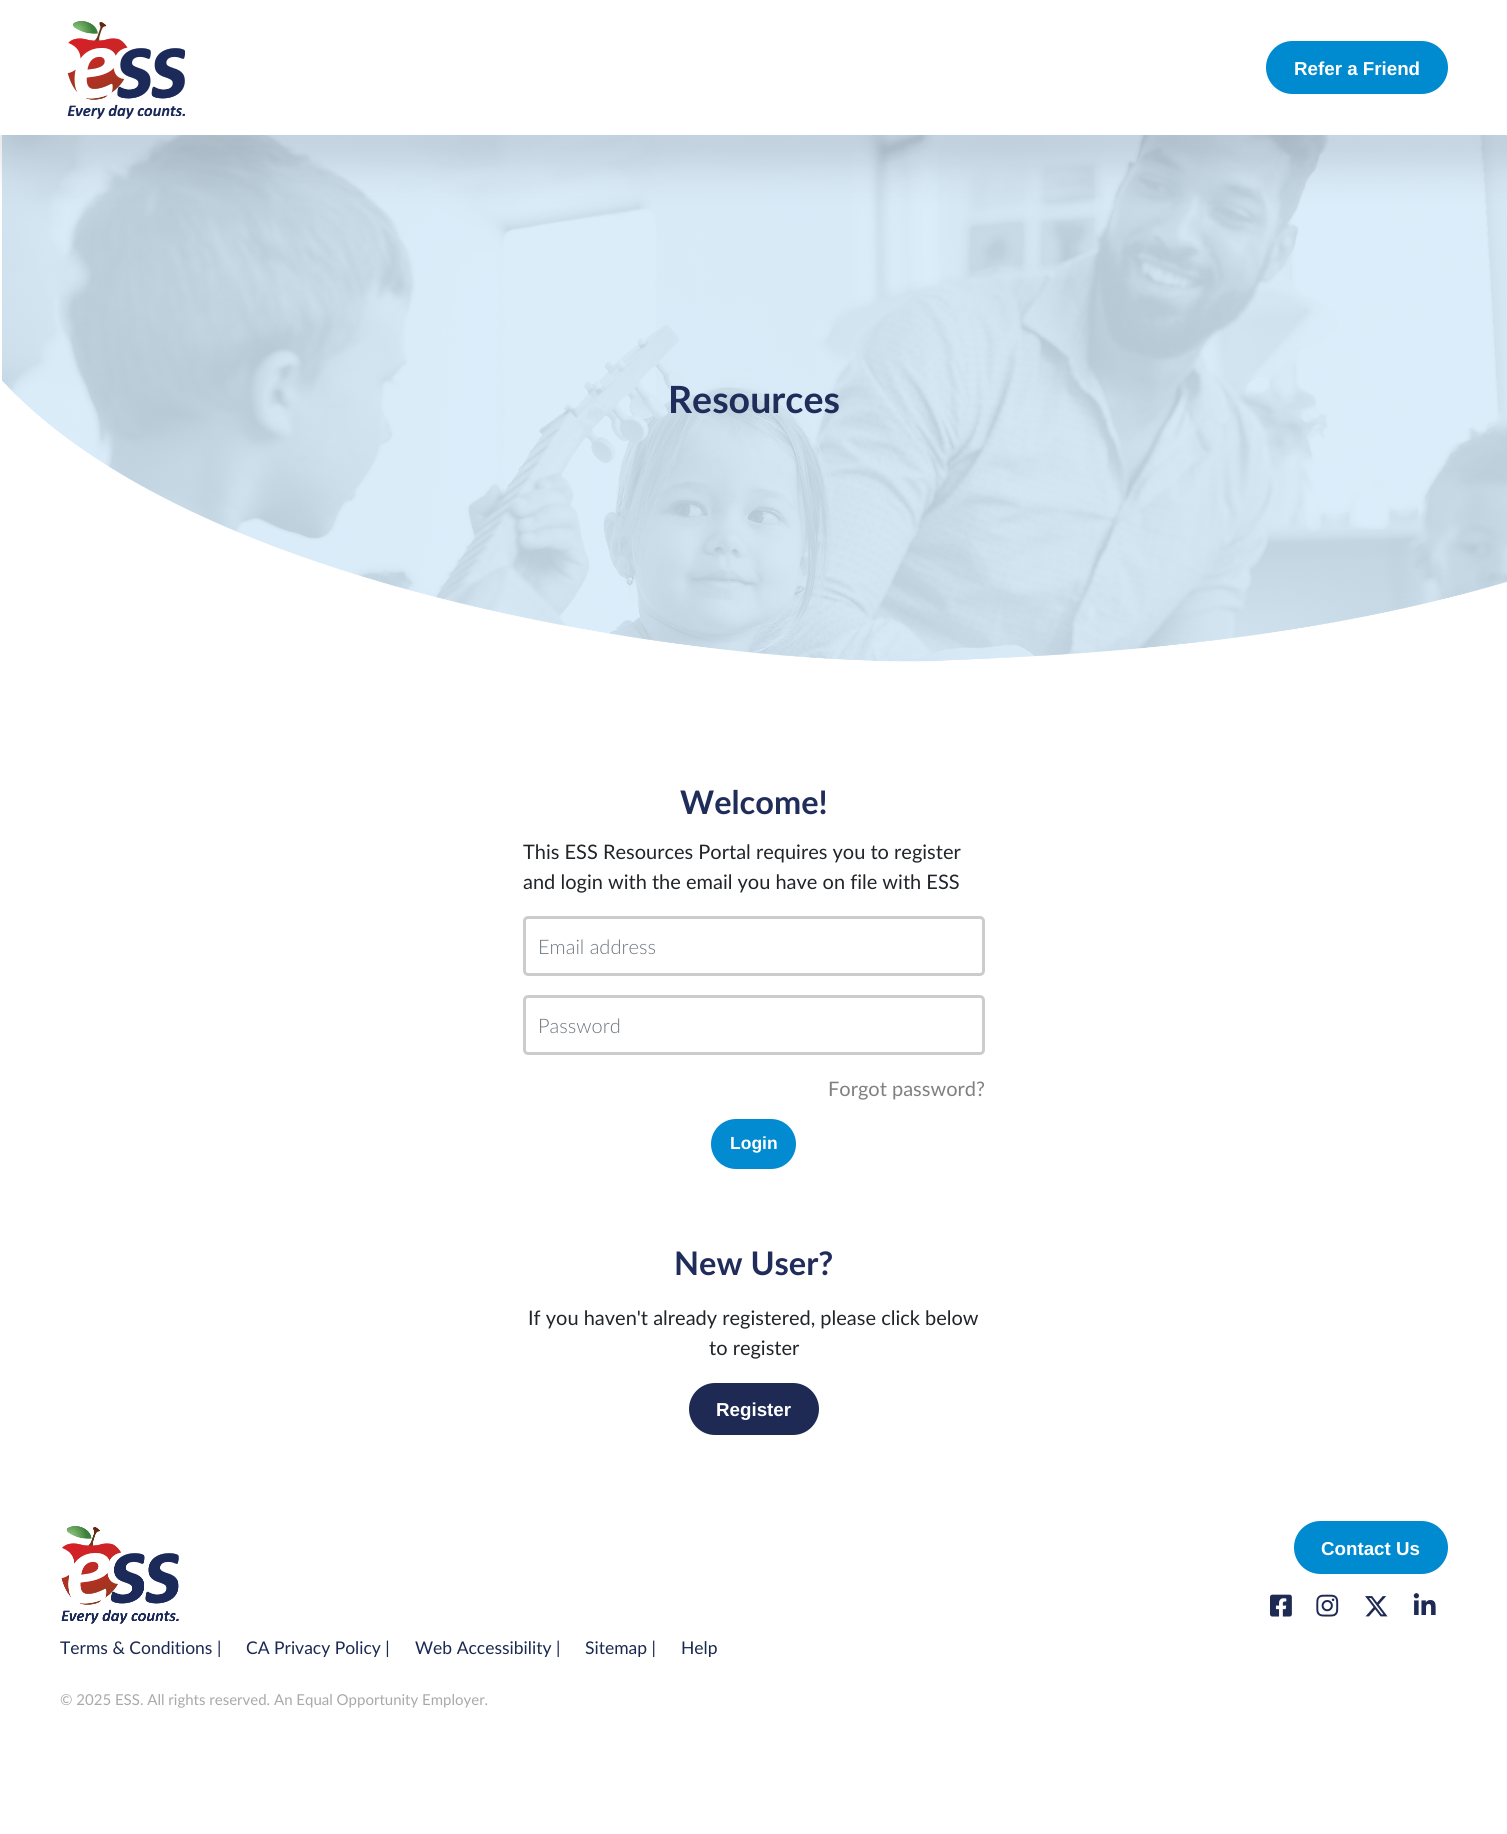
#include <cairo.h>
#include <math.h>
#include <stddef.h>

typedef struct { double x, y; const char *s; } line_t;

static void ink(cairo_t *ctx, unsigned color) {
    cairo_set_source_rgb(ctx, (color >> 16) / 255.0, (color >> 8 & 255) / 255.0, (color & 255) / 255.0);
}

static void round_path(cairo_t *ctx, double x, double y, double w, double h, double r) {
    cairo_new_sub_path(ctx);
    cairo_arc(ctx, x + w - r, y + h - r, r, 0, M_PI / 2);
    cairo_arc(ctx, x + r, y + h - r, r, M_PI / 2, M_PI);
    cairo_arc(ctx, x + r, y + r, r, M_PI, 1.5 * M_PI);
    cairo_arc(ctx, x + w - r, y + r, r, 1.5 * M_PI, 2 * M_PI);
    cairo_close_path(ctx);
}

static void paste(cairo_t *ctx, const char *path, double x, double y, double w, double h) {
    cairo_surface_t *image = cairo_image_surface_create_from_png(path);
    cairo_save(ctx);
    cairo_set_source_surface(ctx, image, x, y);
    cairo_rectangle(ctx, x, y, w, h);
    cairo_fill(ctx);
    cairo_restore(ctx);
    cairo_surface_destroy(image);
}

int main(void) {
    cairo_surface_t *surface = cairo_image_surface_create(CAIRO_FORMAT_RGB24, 1507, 1834);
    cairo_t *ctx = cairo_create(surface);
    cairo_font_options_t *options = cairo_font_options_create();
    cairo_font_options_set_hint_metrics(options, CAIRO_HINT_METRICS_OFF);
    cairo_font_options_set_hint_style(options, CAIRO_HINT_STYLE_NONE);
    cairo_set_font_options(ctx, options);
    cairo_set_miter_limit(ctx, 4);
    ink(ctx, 0xFFFFFF);
    cairo_paint(ctx);
    paste(ctx, "media/1.png", 67, 21, 118, 98);
    ink(ctx, 0x008AD0);
    round_path(ctx, 1266, 41, 182, 53, 26.5);
    cairo_fill(ctx);
    cairo_select_font_face(ctx, "Liberation Sans", CAIRO_FONT_SLANT_NORMAL, CAIRO_FONT_WEIGHT_BOLD);
    cairo_set_font_size(ctx, 18.75);
    ink(ctx, 0xFFFFFF);
    cairo_move_to(ctx, 1294, 75);
    cairo_show_text(ctx, "Refer a Friend");
    paste(ctx, "media/2.png", 0, 135, 1507, 527);
    cairo_select_font_face(ctx, "Lato", CAIRO_FONT_SLANT_NORMAL, CAIRO_FONT_WEIGHT_BOLD);
    cairo_set_font_size(ctx, 37.5);
    ink(ctx, 0x202C5A);
    cairo_move_to(ctx, 668, 413);
    cairo_show_text(ctx, "Resources");
    cairo_set_font_size(ctx, 32.5);
    cairo_move_to(ctx, 680, 814);
    cairo_show_text(ctx, "Welcome!");
    cairo_select_font_face(ctx, "Lato", CAIRO_FONT_SLANT_NORMAL, CAIRO_FONT_WEIGHT_NORMAL);
    cairo_set_font_size(ctx, 20);
    ink(ctx, 0x212529);
    cairo_move_to(ctx, 523, 859);
    cairo_show_text(ctx, "This ESS Resources Portal requires you to register");
    cairo_move_to(ctx, 523, 889);
    cairo_show_text(ctx, "and login with the email you have on file with ESS");
    round_path(ctx, 524.5, 917.5, 459, 57, 3.5);
    ink(ctx, 0xCCCCCC);
    cairo_set_line_width(ctx, 3);
    cairo_stroke(ctx);
    cairo_select_font_face(ctx, "Lato Light", CAIRO_FONT_SLANT_NORMAL, CAIRO_FONT_WEIGHT_NORMAL);
    ink(ctx, 0x6C757D);
    cairo_move_to(ctx, 538, 954);
    cairo_show_text(ctx, "Email address");
    round_path(ctx, 524.5, 996.5, 459, 57, 3.5);
    ink(ctx, 0xCCCCCC);
    cairo_stroke(ctx);
    ink(ctx, 0x6C757D);
    cairo_move_to(ctx, 538, 1033);
    cairo_show_text(ctx, "Password");
    cairo_select_font_face(ctx, "Lato", CAIRO_FONT_SLANT_NORMAL, CAIRO_FONT_WEIGHT_NORMAL);
    ink(ctx, 0x808080);
    cairo_move_to(ctx, 828, 1096);
    cairo_show_text(ctx, "Forgot password?");
    ink(ctx, 0x028BD0);
    round_path(ctx, 711, 1119, 85, 50, 25);
    cairo_fill(ctx);
    cairo_select_font_face(ctx, "Liberation Sans", CAIRO_FONT_SLANT_NORMAL, CAIRO_FONT_WEIGHT_BOLD);
    cairo_set_font_size(ctx, 17.5);
    ink(ctx, 0xFFFFFF);
    cairo_move_to(ctx, 730, 1149);
    cairo_show_text(ctx, "Login");
    cairo_select_font_face(ctx, "Lato", CAIRO_FONT_SLANT_NORMAL, CAIRO_FONT_WEIGHT_BOLD);
    cairo_set_font_size(ctx, 32.5);
    ink(ctx, 0x202C5A);
    cairo_move_to(ctx, 674, 1275);
    cairo_show_text(ctx, "New User?");
    cairo_select_font_face(ctx, "Lato", CAIRO_FONT_SLANT_NORMAL, CAIRO_FONT_WEIGHT_NORMAL);
    cairo_set_font_size(ctx, 20);
    ink(ctx, 0x212529);
    cairo_move_to(ctx, 528, 1325);
    cairo_show_text(ctx, "If you haven't already registered, please click below");
    cairo_move_to(ctx, 709, 1355);
    cairo_show_text(ctx, "to register");
    ink(ctx, 0x1E2A53);
    round_path(ctx, 689, 1383, 130, 52, 26);
    cairo_fill(ctx);
    cairo_select_font_face(ctx, "Liberation Sans", CAIRO_FONT_SLANT_NORMAL, CAIRO_FONT_WEIGHT_BOLD);
    cairo_set_font_size(ctx, 18.75);
    ink(ctx, 0xFFFFFF);
    cairo_move_to(ctx, 716, 1416);
    cairo_show_text(ctx, "Register");
    ink(ctx, 0x008AD0);
    round_path(ctx, 1294, 1521, 154, 53, 26.5);
    cairo_fill(ctx);
    ink(ctx, 0xFFFFFF);
    cairo_move_to(ctx, 1321, 1555);
    cairo_show_text(ctx, "Contact Us");
    paste(ctx, "media/3.png", 1270, 1594, 22, 23);
    paste(ctx, "media/4.png", 1316, 1594, 23, 23);
    paste(ctx, "media/5.png", 1365, 1596, 23, 21);
    paste(ctx, "media/6.png", 1413, 1593, 23, 22);
    paste(ctx, "media/7.png", 61, 1526, 118, 98);
    cairo_select_font_face(ctx, "Lato", CAIRO_FONT_SLANT_NORMAL, CAIRO_FONT_WEIGHT_NORMAL);
    cairo_set_font_size(ctx, 17.5);
    ink(ctx, 0x1B2850);
    {
        static const line_t items[] = {
            {60, 1654, "Terms & Conditions |"},
            {246, 1654, "CA Privacy Policy |"},
            {415, 1654, "Web Accessibility |"},
            {585, 1654, "Sitemap |"},
            {681, 1654, "Help"},
        };
        for (size_t i = 0; i < sizeof items / sizeof *items; i++) {
            cairo_move_to(ctx, items[i].x, items[i].y);
            cairo_show_text(ctx, items[i].s);
        }
    }
    cairo_set_font_size(ctx, 15);
    ink(ctx, 0xA9A9A9);
    cairo_move_to(ctx, 60, 1705);
    cairo_show_text(ctx, "© 2025 ESS. All rights reserved. An Equal Opportunity Employer.");
    cairo_surface_write_to_png(surface, "image.png");
    cairo_font_options_destroy(options);
    cairo_destroy(ctx);
    cairo_surface_destroy(surface);
    return 0;
}
